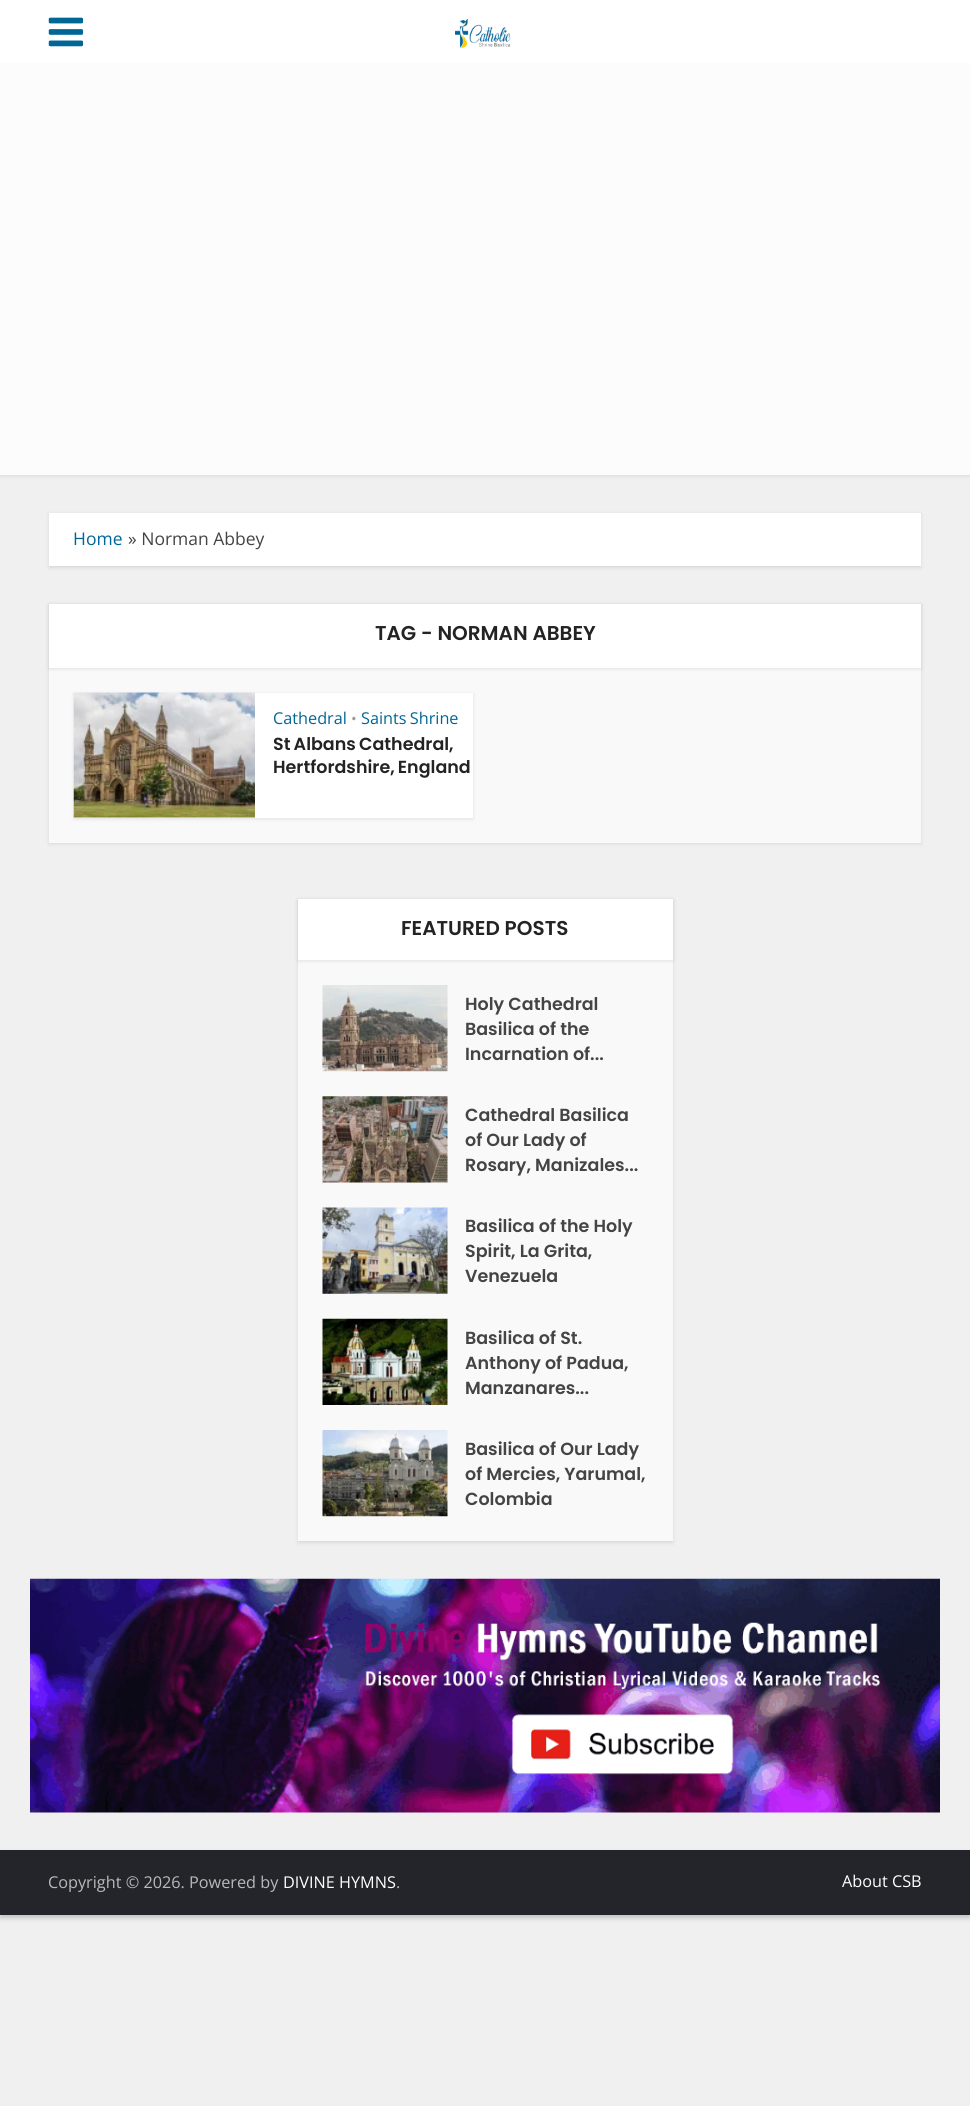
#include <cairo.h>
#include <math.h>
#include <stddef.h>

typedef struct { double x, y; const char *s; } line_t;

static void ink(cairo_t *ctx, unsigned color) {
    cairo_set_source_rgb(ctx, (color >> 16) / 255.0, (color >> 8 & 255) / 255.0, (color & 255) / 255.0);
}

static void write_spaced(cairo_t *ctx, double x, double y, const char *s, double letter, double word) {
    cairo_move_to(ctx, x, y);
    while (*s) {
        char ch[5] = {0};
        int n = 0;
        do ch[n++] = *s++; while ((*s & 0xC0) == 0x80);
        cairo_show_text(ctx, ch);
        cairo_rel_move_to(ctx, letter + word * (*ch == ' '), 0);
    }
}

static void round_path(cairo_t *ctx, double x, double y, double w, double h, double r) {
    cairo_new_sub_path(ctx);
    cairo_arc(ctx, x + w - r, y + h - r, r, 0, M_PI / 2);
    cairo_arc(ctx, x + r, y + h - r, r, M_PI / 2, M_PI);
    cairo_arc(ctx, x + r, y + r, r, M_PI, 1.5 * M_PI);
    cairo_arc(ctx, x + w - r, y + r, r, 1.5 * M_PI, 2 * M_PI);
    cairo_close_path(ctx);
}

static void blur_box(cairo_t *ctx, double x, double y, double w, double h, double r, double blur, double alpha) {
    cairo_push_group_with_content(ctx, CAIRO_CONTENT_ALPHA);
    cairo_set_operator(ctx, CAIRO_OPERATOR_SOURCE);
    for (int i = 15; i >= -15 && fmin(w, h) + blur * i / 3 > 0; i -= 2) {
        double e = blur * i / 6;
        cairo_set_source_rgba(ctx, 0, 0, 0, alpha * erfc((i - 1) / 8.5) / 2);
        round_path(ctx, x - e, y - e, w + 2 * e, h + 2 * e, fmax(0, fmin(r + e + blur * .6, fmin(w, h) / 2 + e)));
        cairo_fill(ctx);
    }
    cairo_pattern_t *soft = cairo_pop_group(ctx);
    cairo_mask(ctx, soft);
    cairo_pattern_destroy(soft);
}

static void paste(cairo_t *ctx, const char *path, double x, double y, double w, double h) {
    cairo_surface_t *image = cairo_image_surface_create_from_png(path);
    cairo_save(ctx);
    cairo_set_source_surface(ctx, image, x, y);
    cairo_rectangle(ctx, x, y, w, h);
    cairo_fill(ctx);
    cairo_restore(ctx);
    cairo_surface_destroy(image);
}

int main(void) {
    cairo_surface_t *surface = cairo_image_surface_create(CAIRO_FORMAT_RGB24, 970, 2106);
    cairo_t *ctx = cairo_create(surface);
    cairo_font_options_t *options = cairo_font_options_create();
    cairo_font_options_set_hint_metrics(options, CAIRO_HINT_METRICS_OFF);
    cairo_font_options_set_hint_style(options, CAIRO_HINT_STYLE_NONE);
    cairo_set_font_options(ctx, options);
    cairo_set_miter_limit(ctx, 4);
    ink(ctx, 0xF0F0F0);
    cairo_paint(ctx);
    ink(ctx, 0x000000);
    blur_box(ctx, 0, 1, 970, 475, 0, 2, 0.1);
    ink(ctx, 0xFFFFFF);
    cairo_rectangle(ctx, 0, 0, 970, 63);
    cairo_fill(ctx);
    paste(ctx, "media/1.png", 48, 17, 36, 30);
    paste(ctx, "media/2.png", 455, 19, 56, 29);
    ink(ctx, 0xFCFCFC);
    cairo_rectangle(ctx, 0, 63, 970, 412);
    cairo_fill(ctx);
    ink(ctx, 0x000000);
    blur_box(ctx, 49, 514, 872, 54, 0, 2, 0.1);
    ink(ctx, 0xFFFFFF);
    cairo_rectangle(ctx, 49, 513, 872, 53);
    cairo_fill(ctx);
    cairo_select_font_face(ctx, "Open Sans", CAIRO_FONT_SLANT_NORMAL, CAIRO_FONT_WEIGHT_NORMAL);
    cairo_set_font_size(ctx, 17.5);
    ink(ctx, 0x006696);
    cairo_move_to(ctx, 73, 545);
    cairo_show_text(ctx, "Home");
    ink(ctx, 0x444444);
    cairo_move_to(ctx, 128, 545);
    cairo_show_text(ctx, "» Norman Abbey");
    ink(ctx, 0x000000);
    blur_box(ctx, 49, 605, 872, 239, 0, 2, 0.1);
    ink(ctx, 0xF9F9F9);
    cairo_rectangle(ctx, 49, 668, 872, 175);
    cairo_fill(ctx);
    ink(ctx, 0x000000);
    blur_box(ctx, 49, 605, 872, 64, 0, 2, 0.1);
    ink(ctx, 0xFFFFFF);
    cairo_rectangle(ctx, 49, 604, 872, 64);
    cairo_fill(ctx);
    cairo_select_font_face(ctx, "Poppins SemiBold", CAIRO_FONT_SLANT_NORMAL, CAIRO_FONT_WEIGHT_NORMAL);
    cairo_set_font_size(ctx, 20);
    ink(ctx, 0x232323);
    cairo_move_to(ctx, 375, 640);
    cairo_show_text(ctx, "TAG - NORMAN ABBEY");
    ink(ctx, 0x000000);
    blur_box(ctx, 74, 694, 399, 125, 0, 2, 0.1);
    ink(ctx, 0xFFFFFF);
    cairo_rectangle(ctx, 74, 693, 399, 125);
    cairo_fill(ctx);
    paste(ctx, "media/3.png", 73, 692, 182, 126);
    cairo_select_font_face(ctx, "Open Sans", CAIRO_FONT_SLANT_NORMAL, CAIRO_FONT_WEIGHT_NORMAL);
    cairo_set_font_size(ctx, 16.25);
    ink(ctx, 0x006696);
    cairo_move_to(ctx, 273, 724);
    cairo_show_text(ctx, "Cathedral");
    cairo_set_font_size(ctx, 15);
    ink(ctx, 0x9B9B9B);
    cairo_move_to(ctx, 351, 724);
    cairo_show_text(ctx, "•");
    cairo_set_font_size(ctx, 16.25);
    ink(ctx, 0x006696);
    write_spaced(ctx, 361, 724, "Saints Shrine", 0, -1);
    cairo_select_font_face(ctx, "Poppins SemiBold", CAIRO_FONT_SLANT_NORMAL, CAIRO_FONT_WEIGHT_NORMAL);
    cairo_set_font_size(ctx, 17.5);
    ink(ctx, 0x232323);
    write_spaced(ctx, 273, 750, "St Albans Cathedral,", 0, -1);
    write_spaced(ctx, 273, 773, "Hertfordshire, England", 0, -1);
    ink(ctx, 0x000000);
    blur_box(ctx, 298, 900, 375, 643, 0, 2, 0.1);
    ink(ctx, 0xF9F9F9);
    cairo_rectangle(ctx, 298, 960, 375, 581);
    cairo_fill(ctx);
    ink(ctx, 0x000000);
    blur_box(ctx, 298, 900, 375, 61, 0, 2, 0.1);
    ink(ctx, 0xFFFFFF);
    cairo_rectangle(ctx, 298, 899, 375, 61);
    cairo_fill(ctx);
    cairo_set_font_size(ctx, 20);
    ink(ctx, 0x232323);
    cairo_move_to(ctx, 401, 935);
    cairo_show_text(ctx, "FEATURED POSTS");
    paste(ctx, "media/4.png", 322, 985, 126, 87);
    cairo_set_font_size(ctx, 17.5);
    ink(ctx, 0x444444);
    {
        static const line_t items[] = {
            {465, 1010, "Holy Cathedral"},
            {465, 1035, "Basilica of the"},
            {465, 1060, "Incarnation of..."},
        };
        for (size_t i = 0; i < sizeof items / sizeof *items; i++) {
            cairo_move_to(ctx, items[i].x, items[i].y);
            cairo_show_text(ctx, items[i].s);
        }
    }
    paste(ctx, "media/5.png", 322, 1096, 126, 87);
    {
        static const line_t items[] = {
            {465, 1121, "Cathedral Basilica"},
            {465, 1146, "of Our Lady of"},
            {465, 1171, "Rosary, Manizales..."},
        };
        for (size_t i = 0; i < sizeof items / sizeof *items; i++) {
            cairo_move_to(ctx, items[i].x, items[i].y);
            cairo_show_text(ctx, items[i].s);
        }
    }
    paste(ctx, "media/6.png", 322, 1207, 126, 87);
    {
        static const line_t items[] = {
            {465, 1232, "Basilica of the Holy"},
            {465, 1257, "Spirit, La Grita,"},
            {465, 1282, "Venezuela"},
        };
        for (size_t i = 0; i < sizeof items / sizeof *items; i++) {
            cairo_move_to(ctx, items[i].x, items[i].y);
            cairo_show_text(ctx, items[i].s);
        }
    }
    paste(ctx, "media/7.png", 322, 1318, 126, 87);
    {
        static const line_t items[] = {
            {465, 1344, "Basilica of St."},
            {465, 1369, "Anthony of Padua,"},
            {465, 1394, "Manzanares..."},
        };
        for (size_t i = 0; i < sizeof items / sizeof *items; i++) {
            cairo_move_to(ctx, items[i].x, items[i].y);
            cairo_show_text(ctx, items[i].s);
        }
    }
    paste(ctx, "media/8.png", 322, 1430, 126, 87);
    {
        static const line_t items[] = {
            {465, 1455, "Basilica of Our Lady"},
            {465, 1480, "of Mercies, Yarumal,"},
            {465, 1505, "Colombia"},
        };
        for (size_t i = 0; i < sizeof items / sizeof *items; i++) {
            cairo_move_to(ctx, items[i].x, items[i].y);
            cairo_show_text(ctx, items[i].s);
        }
    }
    paste(ctx, "media/9.png", 30, 1578, 910, 235);
    ink(ctx, 0x000000);
    blur_box(ctx, 0, 1853, 970, 65, 0, 2.5, 0.2);
    ink(ctx, 0x24252A);
    cairo_rectangle(ctx, 0, 1850, 970, 65);
    cairo_fill(ctx);
    cairo_select_font_face(ctx, "Open Sans", CAIRO_FONT_SLANT_NORMAL, CAIRO_FONT_WEIGHT_NORMAL);
    cairo_set_font_size(ctx, 16.25);
    ink(ctx, 0xB9B9BB);
    cairo_move_to(ctx, 48, 1888);
    cairo_show_text(ctx, "Copyright © 2026. Powered by");
    ink(ctx, 0xFFFFFF);
    cairo_move_to(ctx, 283, 1888);
    cairo_show_text(ctx, "DIVINE HYMNS");
    ink(ctx, 0xB9B9BB);
    cairo_move_to(ctx, 396, 1888);
    cairo_show_text(ctx, ".");
    ink(ctx, 0xFFFFFF);
    cairo_move_to(ctx, 842, 1887);
    cairo_show_text(ctx, "About CSB");
    cairo_surface_write_to_png(surface, "image.png");
    cairo_font_options_destroy(options);
    cairo_destroy(ctx);
    cairo_surface_destroy(surface);
    return 0;
}
